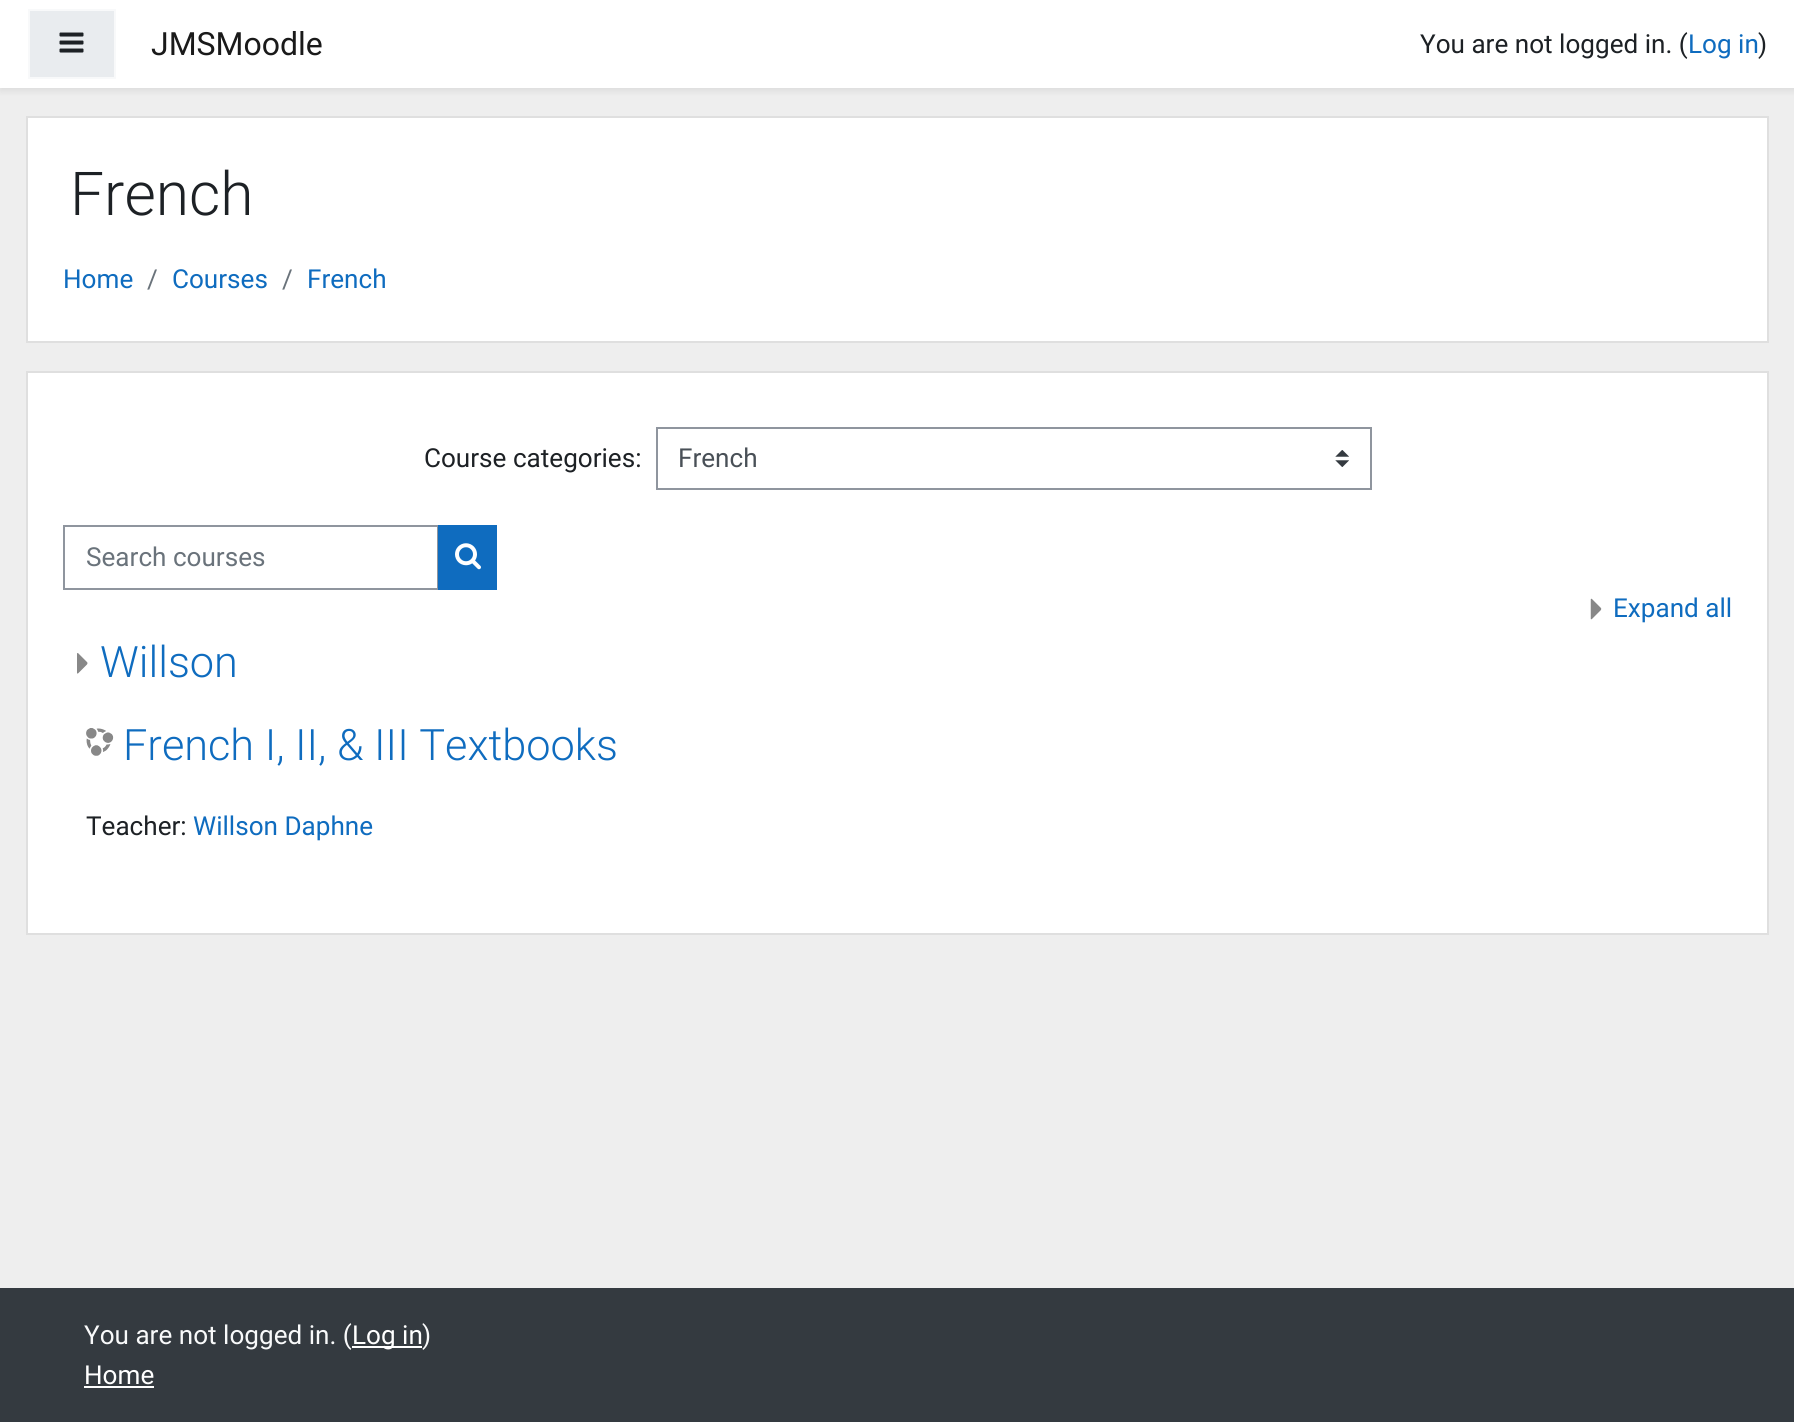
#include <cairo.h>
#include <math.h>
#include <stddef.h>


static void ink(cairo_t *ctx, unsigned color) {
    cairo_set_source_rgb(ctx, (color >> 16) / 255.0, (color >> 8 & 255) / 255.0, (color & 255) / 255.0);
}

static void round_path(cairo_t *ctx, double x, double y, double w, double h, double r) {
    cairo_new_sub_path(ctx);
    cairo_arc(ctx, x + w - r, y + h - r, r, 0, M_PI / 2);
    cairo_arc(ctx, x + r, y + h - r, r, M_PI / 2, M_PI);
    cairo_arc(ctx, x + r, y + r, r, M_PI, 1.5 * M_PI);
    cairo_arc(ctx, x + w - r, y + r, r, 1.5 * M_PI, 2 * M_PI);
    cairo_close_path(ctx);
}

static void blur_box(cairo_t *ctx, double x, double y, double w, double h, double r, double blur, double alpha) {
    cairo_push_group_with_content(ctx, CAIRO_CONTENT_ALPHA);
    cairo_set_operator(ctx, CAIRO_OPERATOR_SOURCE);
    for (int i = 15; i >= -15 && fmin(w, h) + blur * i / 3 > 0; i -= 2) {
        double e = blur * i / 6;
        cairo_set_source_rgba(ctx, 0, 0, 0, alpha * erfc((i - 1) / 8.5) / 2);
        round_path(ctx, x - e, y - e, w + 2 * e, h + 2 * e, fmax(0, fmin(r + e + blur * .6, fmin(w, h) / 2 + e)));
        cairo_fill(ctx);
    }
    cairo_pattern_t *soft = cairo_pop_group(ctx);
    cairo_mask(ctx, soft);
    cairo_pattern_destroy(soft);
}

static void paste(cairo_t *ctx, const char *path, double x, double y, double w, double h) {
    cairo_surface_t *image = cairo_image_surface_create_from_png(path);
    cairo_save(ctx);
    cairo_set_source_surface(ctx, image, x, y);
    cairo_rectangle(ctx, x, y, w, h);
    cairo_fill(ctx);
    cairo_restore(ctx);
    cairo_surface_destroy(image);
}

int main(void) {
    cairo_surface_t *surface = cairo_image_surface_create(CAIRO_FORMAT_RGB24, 1794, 1422);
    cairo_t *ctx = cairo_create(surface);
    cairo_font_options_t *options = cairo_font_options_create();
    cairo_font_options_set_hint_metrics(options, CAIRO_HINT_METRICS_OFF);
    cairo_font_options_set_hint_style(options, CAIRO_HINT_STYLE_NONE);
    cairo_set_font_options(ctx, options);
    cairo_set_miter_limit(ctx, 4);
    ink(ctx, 0xEEEEEE);
    cairo_paint(ctx);
    ink(ctx, 0x000000);
    blur_box(ctx, 0, 4, 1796, 87, 0, 3.5, 0.08);
    ink(ctx, 0xFFFFFF);
    cairo_rectangle(ctx, 0, 0, 1794, 88);
    cairo_fill(ctx);
    ink(ctx, 0xE9ECEF);
    cairo_rectangle(ctx, 29, 10, 86, 68);
    cairo_fill_preserve(ctx);
    ink(ctx, 0xF8F9FA);
    cairo_stroke(ctx);
    paste(ctx, "media/1.png", 59, 32, 25, 21);
    cairo_select_font_face(ctx, "Roboto", CAIRO_FONT_SLANT_NORMAL, CAIRO_FONT_WEIGHT_NORMAL);
    cairo_set_font_size(ctx, 32);
    ink(ctx, 0x1A1A1A);
    cairo_move_to(ctx, 151, 55);
    cairo_show_text(ctx, "JMSMoodle");
    cairo_set_font_size(ctx, 26.1);
    ink(ctx, 0x1D2125);
    cairo_move_to(ctx, 1420, 53);
    cairo_show_text(ctx, "You are not logged in. (");
    ink(ctx, 0x0F6CBF);
    cairo_move_to(ctx, 1688, 53);
    cairo_show_text(ctx, "Log in");
    ink(ctx, 0x1D2125);
    cairo_move_to(ctx, 1758, 53);
    cairo_show_text(ctx, ")");
    ink(ctx, 0xFFFFFF);
    cairo_rectangle(ctx, 27, 117, 1741, 225);
    cairo_fill_preserve(ctx);
    ink(ctx, 0xDFDFDF);
    cairo_stroke(ctx);
    cairo_select_font_face(ctx, "Roboto Light", CAIRO_FONT_SLANT_NORMAL, CAIRO_FONT_WEIGHT_NORMAL);
    cairo_set_font_size(ctx, 60.5);
    ink(ctx, 0x1D2125);
    cairo_move_to(ctx, 70, 215);
    cairo_show_text(ctx, "French");
    cairo_select_font_face(ctx, "Roboto", CAIRO_FONT_SLANT_NORMAL, CAIRO_FONT_WEIGHT_NORMAL);
    cairo_set_font_size(ctx, 26.1);
    ink(ctx, 0x0F6CBF);
    cairo_move_to(ctx, 63, 288);
    cairo_show_text(ctx, "Home");
    ink(ctx, 0x6A737B);
    cairo_move_to(ctx, 147, 288);
    cairo_show_text(ctx, "/");
    ink(ctx, 0x0F6CBF);
    cairo_move_to(ctx, 172, 288);
    cairo_show_text(ctx, "Courses");
    ink(ctx, 0x6A737B);
    cairo_move_to(ctx, 282, 288);
    cairo_show_text(ctx, "/");
    ink(ctx, 0x0F6CBF);
    cairo_move_to(ctx, 307, 288);
    cairo_show_text(ctx, "French");
    ink(ctx, 0xFFFFFF);
    cairo_rectangle(ctx, 27, 372, 1741, 562);
    cairo_fill_preserve(ctx);
    ink(ctx, 0xDFDFDF);
    cairo_stroke(ctx);
    ink(ctx, 0x1D2125);
    cairo_move_to(ctx, 424, 467);
    cairo_show_text(ctx, "Course categories:");
    paste(ctx, "media/2.png", 1335, 450, 14, 17);
    cairo_rectangle(ctx, 657, 428, 714, 61);
    ink(ctx, 0x8F959E);
    cairo_stroke(ctx);
    ink(ctx, 0x495057);
    cairo_move_to(ctx, 678, 467);
    cairo_show_text(ctx, "French");
    cairo_rectangle(ctx, 64, 526, 374, 63);
    ink(ctx, 0x8F959E);
    cairo_stroke(ctx);
    ink(ctx, 0x6A737B);
    cairo_move_to(ctx, 86, 566);
    cairo_show_text(ctx, "Search courses");
    ink(ctx, 0x0F6CBF);
    cairo_rectangle(ctx, 438, 525, 59, 65);
    cairo_fill(ctx);
    paste(ctx, "media/3.png", 455, 543, 26, 27);
    paste(ctx, "media/4.png", 1590, 598, 12, 22);
    cairo_move_to(ctx, 1613, 617);
    cairo_show_text(ctx, "Expand all");
    paste(ctx, "media/5.png", 77, 653, 11, 21);
    cairo_select_font_face(ctx, "Roboto Light", CAIRO_FONT_SLANT_NORMAL, CAIRO_FONT_WEIGHT_NORMAL);
    cairo_set_font_size(ctx, 43.25);
    cairo_move_to(ctx, 100, 677);
    cairo_show_text(ctx, "Willson");
    paste(ctx, "media/6.png", 86, 728, 28, 28);
    cairo_move_to(ctx, 123, 760);
    cairo_show_text(ctx, "French I, II, & III Textbooks");
    cairo_select_font_face(ctx, "Roboto", CAIRO_FONT_SLANT_NORMAL, CAIRO_FONT_WEIGHT_NORMAL);
    cairo_set_font_size(ctx, 26.1);
    ink(ctx, 0x1D2125);
    cairo_move_to(ctx, 86, 835);
    cairo_show_text(ctx, "Teacher:");
    ink(ctx, 0x0F6CBF);
    cairo_move_to(ctx, 193, 835);
    cairo_show_text(ctx, "Willson Daphne");
    ink(ctx, 0x343A40);
    cairo_rectangle(ctx, 0, 1288, 1794, 134);
    cairo_fill(ctx);
    ink(ctx, 0xF8F9FA);
    cairo_move_to(ctx, 84, 1344);
    cairo_show_text(ctx, "You are not logged in. (");
    ink(ctx, 0xFFFFFF);
    cairo_rectangle(ctx, 352, 1346, 70, 2);
    cairo_fill(ctx);
    cairo_move_to(ctx, 352, 1344);
    cairo_show_text(ctx, "Log in");
    ink(ctx, 0xF8F9FA);
    cairo_move_to(ctx, 422, 1344);
    cairo_show_text(ctx, ")");
    ink(ctx, 0xFFFFFF);
    cairo_move_to(ctx, 84, 1384);
    cairo_show_text(ctx, "Home");
    cairo_rectangle(ctx, 84, 1386, 70, 2);
    cairo_fill(ctx);
    cairo_surface_write_to_png(surface, "image.png");
    cairo_font_options_destroy(options);
    cairo_destroy(ctx);
    cairo_surface_destroy(surface);
    return 0;
}
